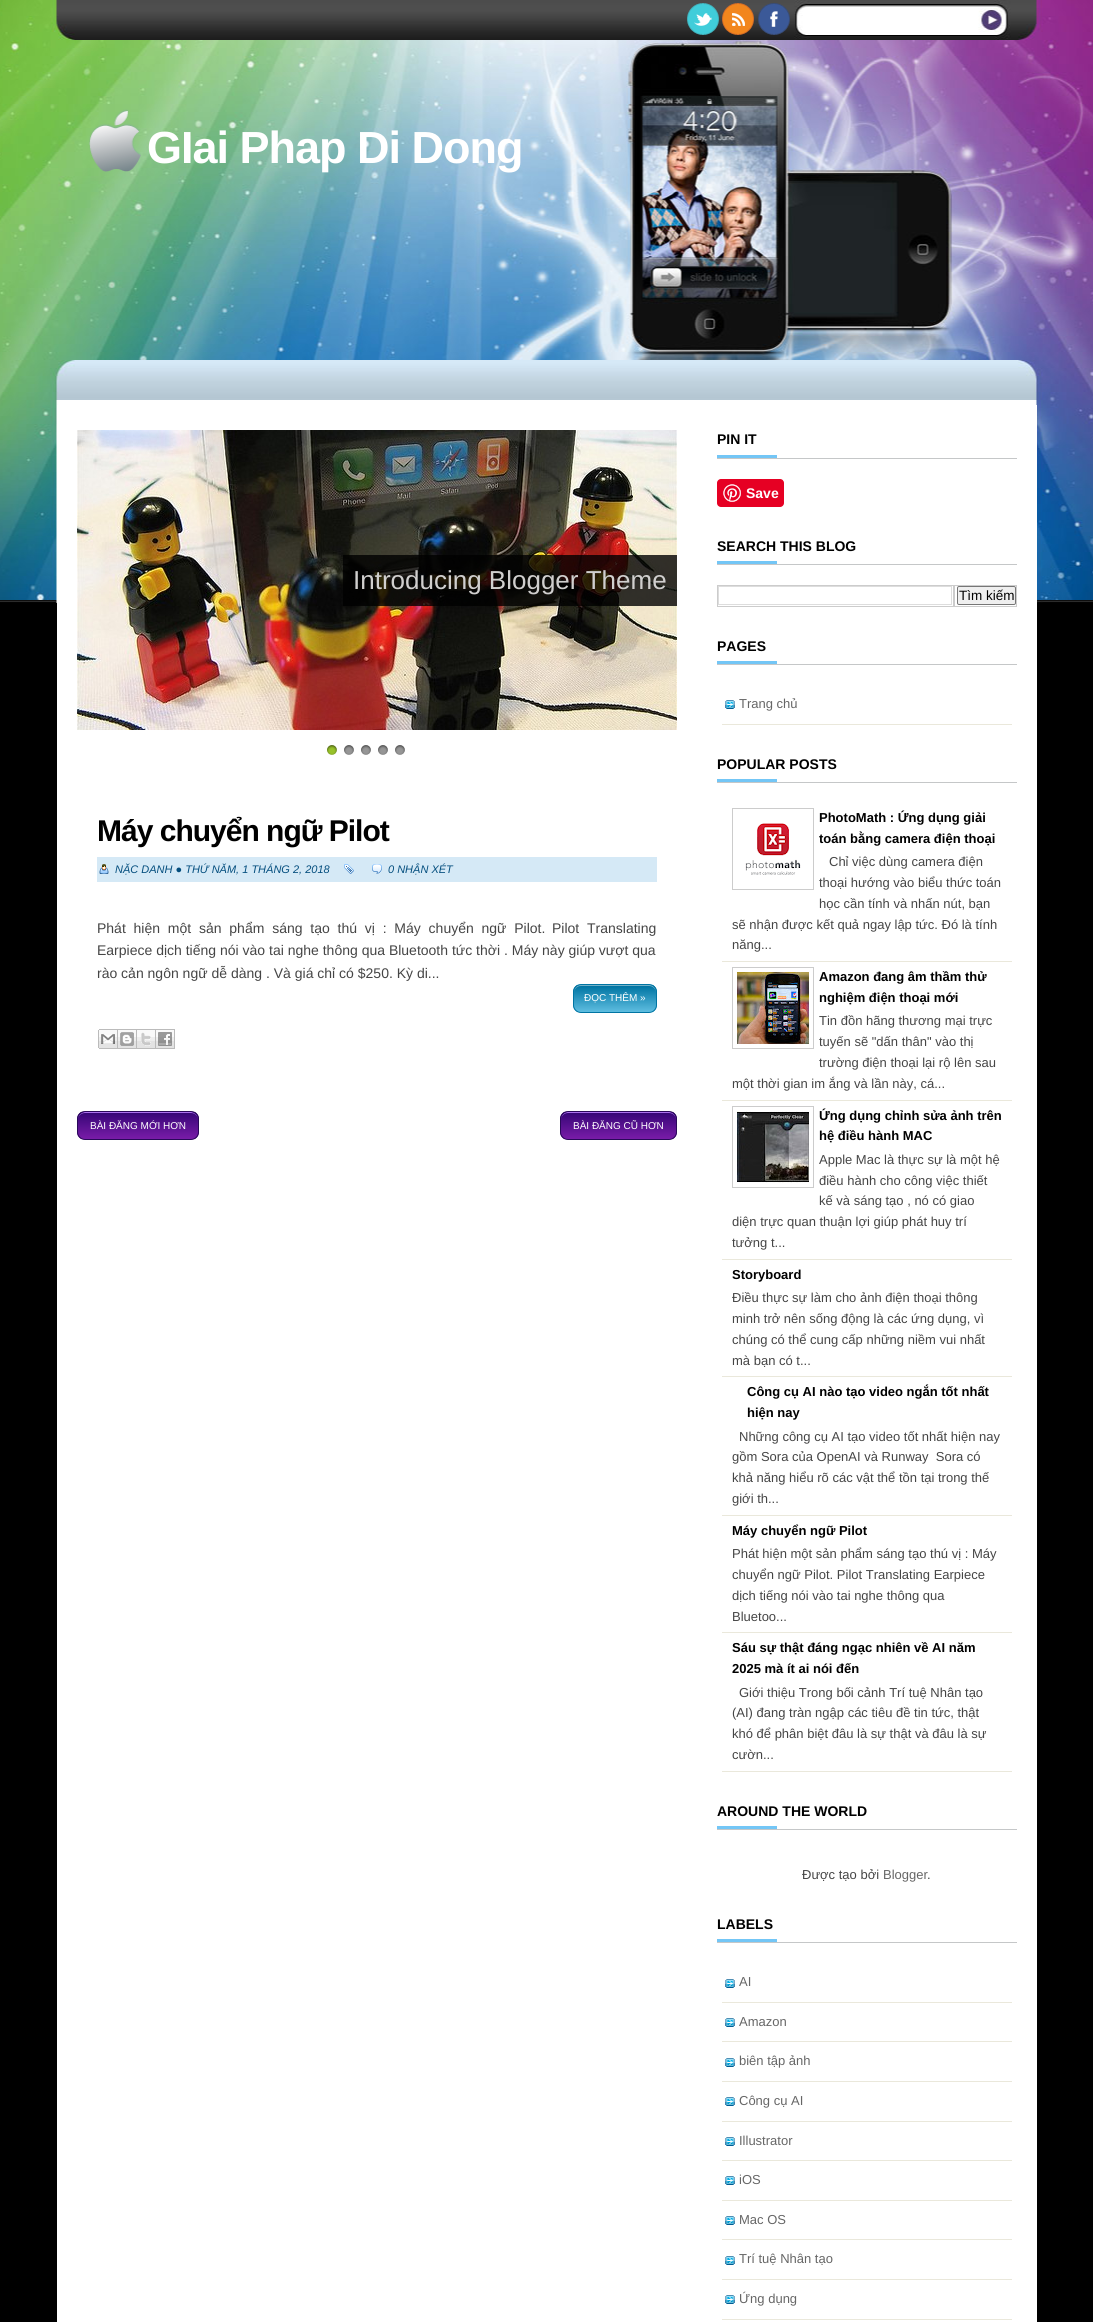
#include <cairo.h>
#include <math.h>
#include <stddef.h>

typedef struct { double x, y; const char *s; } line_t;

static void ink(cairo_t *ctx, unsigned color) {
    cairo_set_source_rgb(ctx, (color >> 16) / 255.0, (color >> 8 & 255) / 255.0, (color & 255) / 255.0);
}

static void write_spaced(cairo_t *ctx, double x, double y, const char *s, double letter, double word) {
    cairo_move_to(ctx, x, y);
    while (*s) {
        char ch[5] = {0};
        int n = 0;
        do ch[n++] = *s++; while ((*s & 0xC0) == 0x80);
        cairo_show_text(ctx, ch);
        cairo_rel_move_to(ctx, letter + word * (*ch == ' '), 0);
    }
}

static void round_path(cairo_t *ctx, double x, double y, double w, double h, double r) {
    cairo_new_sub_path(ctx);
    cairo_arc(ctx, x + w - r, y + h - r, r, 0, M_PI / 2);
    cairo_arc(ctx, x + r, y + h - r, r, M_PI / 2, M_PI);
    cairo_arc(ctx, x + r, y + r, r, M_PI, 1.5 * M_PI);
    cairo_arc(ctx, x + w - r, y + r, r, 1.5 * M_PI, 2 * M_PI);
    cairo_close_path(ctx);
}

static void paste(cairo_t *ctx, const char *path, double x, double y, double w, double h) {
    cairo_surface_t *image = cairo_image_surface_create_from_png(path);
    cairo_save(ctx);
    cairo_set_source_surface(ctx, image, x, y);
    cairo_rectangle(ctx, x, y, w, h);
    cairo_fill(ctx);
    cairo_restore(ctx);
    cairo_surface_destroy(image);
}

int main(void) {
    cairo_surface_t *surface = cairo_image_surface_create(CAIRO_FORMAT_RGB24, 1093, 2322);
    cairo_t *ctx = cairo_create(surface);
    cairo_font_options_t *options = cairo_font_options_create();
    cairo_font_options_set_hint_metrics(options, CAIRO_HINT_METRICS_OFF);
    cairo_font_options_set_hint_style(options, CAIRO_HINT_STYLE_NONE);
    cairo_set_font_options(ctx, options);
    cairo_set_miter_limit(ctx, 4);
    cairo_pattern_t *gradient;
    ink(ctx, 0x000000);
    cairo_paint(ctx);
    paste(ctx, "media/1.png", 0, 0, 1093, 603);
    paste(ctx, "media/2.png", 687, 3, 32, 32);
    paste(ctx, "media/3.png", 722, 3, 32, 32);
    paste(ctx, "media/4.png", 758, 3, 32, 32);
    paste(ctx, "media/5.png", 89, 109, 52, 63);
    cairo_select_font_face(ctx, "Liberation Sans", CAIRO_FONT_SLANT_NORMAL, CAIRO_FONT_WEIGHT_BOLD);
    cairo_set_font_size(ctx, 45);
    ink(ctx, 0xFFFFFF);
    write_spaced(ctx, 147, 163, "GIai Phap Di Dong", -1, 0);
    cairo_rectangle(ctx, 57, 405, 980, 1917);
    cairo_fill(ctx);
    paste(ctx, "media/6.png", 77, 430, 600, 300);
    cairo_set_source_rgba(ctx, 0, 0, 0, 0.8);
    cairo_rectangle(ctx, 343, 555, 334, 51);
    cairo_fill(ctx);
    cairo_select_font_face(ctx, "Liberation Sans", CAIRO_FONT_SLANT_NORMAL, CAIRO_FONT_WEIGHT_NORMAL);
    cairo_set_font_size(ctx, 26);
    ink(ctx, 0xD0CFCE);
    cairo_move_to(ctx, 353, 589);
    cairo_show_text(ctx, "Introducing Blogger Theme");
    paste(ctx, "media/7.png", 327, 745, 10, 10);
    paste(ctx, "media/8.png", 344, 745, 10, 10);
    paste(ctx, "media/8.png", 361, 745, 10, 10);
    paste(ctx, "media/8.png", 378, 745, 10, 10);
    paste(ctx, "media/8.png", 395, 745, 10, 10);
    cairo_select_font_face(ctx, "Liberation Sans", CAIRO_FONT_SLANT_NORMAL, CAIRO_FONT_WEIGHT_BOLD);
    cairo_set_font_size(ctx, 30);
    ink(ctx, 0x000000);
    write_spaced(ctx, 97, 841, "Máy chuyển ngữ Pilot", -1, 0);
    ink(ctx, 0xD5E9F6);
    cairo_rectangle(ctx, 97, 857, 560, 25);
    cairo_fill(ctx);
    paste(ctx, "media/9.png", 99, 864, 10, 10);
    cairo_select_font_face(ctx, "Liberation Sans", CAIRO_FONT_SLANT_ITALIC, CAIRO_FONT_WEIGHT_NORMAL);
    cairo_set_font_size(ctx, 11);
    ink(ctx, 0x044E7E);
    cairo_move_to(ctx, 115, 873);
    cairo_show_text(ctx, "NẶC DANH ● THỨ NĂM, 1 THÁNG 2, 2018");
    paste(ctx, "media/10.png", 344, 864, 10, 10);
    paste(ctx, "media/11.png", 372, 864, 10, 10);
    cairo_move_to(ctx, 388, 873);
    cairo_show_text(ctx, "0 NHẬN XÉT");
    cairo_select_font_face(ctx, "Liberation Sans", CAIRO_FONT_SLANT_NORMAL, CAIRO_FONT_WEIGHT_NORMAL);
    cairo_set_font_size(ctx, 14);
    ink(ctx, 0x454545);
    write_spaced(ctx, 97, 933, "Phát hiện một sản phẩm sáng tạo thú vị : Máy chuyển ngữ Pilot.", 0, 3.9);
    write_spaced(ctx, 552, 933, "Pilot Translating", 0, 3.9);
    cairo_move_to(ctx, 97, 955);
    cairo_show_text(ctx, "Earpiece dịch tiếng nói vào tai nghe thông qua Bluetooth tức thời . Máy này giúp vượt qua");
    cairo_move_to(ctx, 97, 978);
    cairo_show_text(ctx, "rào cản ngôn ngữ dễ dàng . Và giá chỉ có $250. Kỳ di...");
    cairo_save(ctx);
    round_path(ctx, 573, 984, 84, 29, 8);
    cairo_clip(ctx);
    gradient = cairo_pattern_create_linear(574, 985, 574, 1012);
    cairo_pattern_add_color_stop_rgba(gradient, 0.05, 0, 0.459, 0.639, 1);
    cairo_pattern_add_color_stop_rgba(gradient, 1, 0.369, 0.741, 0.878, 1);
    cairo_set_source(ctx, gradient);
    cairo_pattern_destroy(gradient);
    cairo_rectangle(ctx, 573, 985, 84, 27);
    cairo_fill(ctx);
    cairo_restore(ctx);
    ink(ctx, 0x70B0C7);
    cairo_new_path(ctx);
    cairo_move_to(ctx, 581, 986);
    cairo_line_to(ctx, 649, 986);
    cairo_curve_to(ctx, 653, 986, 656, 989, 656, 993);
    cairo_curve_to(ctx, 656, 982, 645, 985, 638, 985);
    cairo_line_to(ctx, 592, 985);
    cairo_curve_to(ctx, 585, 985, 574, 982, 574, 993);
    cairo_curve_to(ctx, 574, 989, 577, 986, 581, 986);
    cairo_close_path(ctx);
    cairo_fill(ctx);
    round_path(ctx, 573.5, 984.5, 83, 28, 7.5);
    ink(ctx, 0x0075A3);
    cairo_set_line_width(ctx, 1);
    cairo_stroke(ctx);
    cairo_set_font_size(ctx, 10);
    ink(ctx, 0xFFFFFF);
    cairo_move_to(ctx, 584, 1001);
    cairo_show_text(ctx, "ĐỌC THÊM »");
    paste(ctx, "media/12.png", 98, 1029, 20, 20);
    paste(ctx, "media/13.png", 118, 1029, 19, 20);
    paste(ctx, "media/14.png", 137, 1029, 19, 20);
    paste(ctx, "media/15.png", 156, 1029, 19, 20);
    cairo_save(ctx);
    round_path(ctx, 77, 1111, 122, 29, 8);
    cairo_clip(ctx);
    gradient = cairo_pattern_create_linear(78, 1112, 78, 1139);
    cairo_pattern_add_color_stop_rgba(gradient, 0.05, 0.22, 0.027, 0.471, 1);
    cairo_pattern_add_color_stop_rgba(gradient, 1, 0.475, 0.11, 0.659, 1);
    cairo_set_source(ctx, gradient);
    cairo_pattern_destroy(gradient);
    cairo_rectangle(ctx, 77, 1112, 122, 27);
    cairo_fill(ctx);
    cairo_restore(ctx);
    ink(ctx, 0xAB71ED);
    cairo_new_path(ctx);
    cairo_move_to(ctx, 85, 1113);
    cairo_line_to(ctx, 191, 1113);
    cairo_curve_to(ctx, 195, 1113, 198, 1116, 198, 1120);
    cairo_curve_to(ctx, 198, 1108, 180, 1112, 173, 1112);
    cairo_line_to(ctx, 103, 1112);
    cairo_curve_to(ctx, 96, 1112, 78, 1108, 78, 1120);
    cairo_curve_to(ctx, 78, 1116, 81, 1113, 85, 1113);
    cairo_close_path(ctx);
    cairo_fill(ctx);
    round_path(ctx, 77.5, 1111.5, 121, 28, 7.5);
    ink(ctx, 0x290959);
    cairo_stroke(ctx);
    ink(ctx, 0xFFFFFF);
    cairo_move_to(ctx, 90, 1129);
    cairo_show_text(ctx, "BÀI ĐĂNG MỚI HƠN");
    cairo_save(ctx);
    round_path(ctx, 560, 1111, 117, 29, 8);
    cairo_clip(ctx);
    gradient = cairo_pattern_create_linear(561, 1112, 561, 1139);
    cairo_pattern_add_color_stop_rgba(gradient, 0.05, 0.22, 0.027, 0.471, 1);
    cairo_pattern_add_color_stop_rgba(gradient, 1, 0.475, 0.11, 0.659, 1);
    cairo_set_source(ctx, gradient);
    cairo_pattern_destroy(gradient);
    cairo_rectangle(ctx, 560, 1112, 117, 27);
    cairo_fill(ctx);
    cairo_restore(ctx);
    ink(ctx, 0xAB71ED);
    cairo_new_path(ctx);
    cairo_move_to(ctx, 568, 1113);
    cairo_line_to(ctx, 669, 1113);
    cairo_curve_to(ctx, 673, 1113, 676, 1116, 676, 1120);
    cairo_curve_to(ctx, 676, 1108, 659, 1112, 652, 1112);
    cairo_line_to(ctx, 585, 1112);
    cairo_curve_to(ctx, 578, 1112, 561, 1108, 561, 1120);
    cairo_curve_to(ctx, 561, 1116, 564, 1113, 568, 1113);
    cairo_close_path(ctx);
    cairo_fill(ctx);
    round_path(ctx, 560.5, 1111.5, 116, 28, 7.5);
    ink(ctx, 0x290959);
    cairo_stroke(ctx);
    ink(ctx, 0xFFFFFF);
    cairo_move_to(ctx, 573, 1129);
    cairo_show_text(ctx, "BÀI ĐĂNG CŨ HƠN");
    paste(ctx, "media/16.png", 717, 455, 300, 4);
    cairo_select_font_face(ctx, "Liberation Sans", CAIRO_FONT_SLANT_NORMAL, CAIRO_FONT_WEIGHT_BOLD);
    cairo_set_font_size(ctx, 14);
    ink(ctx, 0x000000);
    cairo_move_to(ctx, 717, 444);
    cairo_show_text(ctx, "PIN IT");
    ink(ctx, 0xE60023);
    round_path(ctx, 717, 479, 67, 28, 4);
    cairo_fill(ctx);
    paste(ctx, "media/17.png", 723, 484, 18, 18);
    ink(ctx, 0xFFFFFF);
    cairo_move_to(ctx, 746, 498);
    cairo_show_text(ctx, "Save");
    paste(ctx, "media/16.png", 717, 561, 300, 4);
    ink(ctx, 0x000000);
    cairo_move_to(ctx, 717, 551);
    cairo_show_text(ctx, "SEARCH THIS BLOG");
    cairo_rectangle(ctx, 717.5, 585.5, 236, 21);
    ink(ctx, 0xCCCCCC);
    cairo_stroke(ctx);
    cairo_rectangle(ctx, 718.5, 586.5, 233, 18);
    ink(ctx, 0xDDDDDD);
    cairo_stroke(ctx);
    cairo_rectangle(ctx, 954.5, 585.5, 62, 21);
    ink(ctx, 0xCCCCCC);
    cairo_stroke(ctx);
    ink(ctx, 0xEFEFEF);
    round_path(ctx, 957.5, 586.5, 58, 18, 1.5);
    cairo_fill_preserve(ctx);
    ink(ctx, 0x767676);
    cairo_stroke(ctx);
    cairo_select_font_face(ctx, "Liberation Sans", CAIRO_FONT_SLANT_NORMAL, CAIRO_FONT_WEIGHT_NORMAL);
    cairo_set_font_size(ctx, 13.5);
    ink(ctx, 0x000000);
    cairo_move_to(ctx, 959, 600);
    cairo_show_text(ctx, "Tìm kiếm");
    paste(ctx, "media/16.png", 717, 661, 300, 4);
    cairo_select_font_face(ctx, "Liberation Sans", CAIRO_FONT_SLANT_NORMAL, CAIRO_FONT_WEIGHT_BOLD);
    cairo_set_font_size(ctx, 14);
    cairo_move_to(ctx, 717, 651);
    cairo_show_text(ctx, "PAGES");
    paste(ctx, "media/18.png", 725, 700, 10, 9);
    ink(ctx, 0xEAE8DB);
    cairo_rectangle(ctx, 722, 724, 290, 1);
    cairo_fill(ctx);
    cairo_select_font_face(ctx, "Liberation Sans", CAIRO_FONT_SLANT_NORMAL, CAIRO_FONT_WEIGHT_NORMAL);
    cairo_set_font_size(ctx, 13);
    ink(ctx, 0x666666);
    cairo_move_to(ctx, 739, 708);
    cairo_show_text(ctx, "Trang chủ");
    paste(ctx, "media/16.png", 717, 779, 300, 4);
    cairo_select_font_face(ctx, "Liberation Sans", CAIRO_FONT_SLANT_NORMAL, CAIRO_FONT_WEIGHT_BOLD);
    cairo_set_font_size(ctx, 14);
    ink(ctx, 0x000000);
    cairo_move_to(ctx, 717, 769);
    cairo_show_text(ctx, "POPULAR POSTS");
    ink(ctx, 0xEAE8DB);
    cairo_rectangle(ctx, 722, 961, 290, 1);
    cairo_fill(ctx);
    cairo_rectangle(ctx, 732.5, 808.5, 81, 81);
    ink(ctx, 0xCCCCCC);
    cairo_stroke(ctx);
    paste(ctx, "media/19.png", 745, 823, 56, 52);
    cairo_set_font_size(ctx, 13);
    ink(ctx, 0x000000);
    cairo_move_to(ctx, 819, 822);
    cairo_show_text(ctx, "PhotoMath : Ứng dụng giải");
    cairo_move_to(ctx, 819, 843);
    cairo_show_text(ctx, "toán bằng camera điện thoại");
    cairo_select_font_face(ctx, "Liberation Sans", CAIRO_FONT_SLANT_NORMAL, CAIRO_FONT_WEIGHT_NORMAL);
    ink(ctx, 0x454545);
    {
        static const line_t items[] = {
            {829, 866, "Chỉ việc dùng camera điện"},
            {819, 887, "thoại hướng vào biểu thức toán"},
            {819, 908, "học cần tính và nhấn nút, bạn"},
            {732, 929, "sẽ nhận được kết quả ngay lập tức. Đó là tính"},
            {732, 949, "năng..."},
        };
        for (size_t i = 0; i < sizeof items / sizeof *items; i++) {
            cairo_move_to(ctx, items[i].x, items[i].y);
            cairo_show_text(ctx, items[i].s);
        }
    }
    ink(ctx, 0xEAE8DB);
    cairo_rectangle(ctx, 722, 1100, 290, 1);
    cairo_fill(ctx);
    cairo_rectangle(ctx, 732.5, 967.5, 81, 81);
    ink(ctx, 0xCCCCCC);
    cairo_stroke(ctx);
    paste(ctx, "media/20.png", 737, 972, 72, 72);
    cairo_select_font_face(ctx, "Liberation Sans", CAIRO_FONT_SLANT_NORMAL, CAIRO_FONT_WEIGHT_BOLD);
    ink(ctx, 0x000000);
    cairo_move_to(ctx, 819, 981);
    cairo_show_text(ctx, "Amazon đang âm thầm thử");
    cairo_move_to(ctx, 819, 1002);
    cairo_show_text(ctx, "nghiệm điện thoại mới");
    cairo_select_font_face(ctx, "Liberation Sans", CAIRO_FONT_SLANT_NORMAL, CAIRO_FONT_WEIGHT_NORMAL);
    ink(ctx, 0x454545);
    {
        static const line_t items[] = {
            {819, 1025, "Tin đồn hãng thương mại trực"},
            {819, 1046, "tuyến sẽ \"dấn thân\" vào thị"},
            {819, 1067, "trường điện thoại lại rộ lên sau"},
            {732, 1088, "một thời gian im ắng và lần này, cá..."},
        };
        for (size_t i = 0; i < sizeof items / sizeof *items; i++) {
            cairo_move_to(ctx, items[i].x, items[i].y);
            cairo_show_text(ctx, items[i].s);
        }
    }
    ink(ctx, 0xEAE8DB);
    cairo_rectangle(ctx, 722, 1259, 290, 1);
    cairo_fill(ctx);
    cairo_rectangle(ctx, 732.5, 1106.5, 81, 81);
    ink(ctx, 0xCCCCCC);
    cairo_stroke(ctx);
    paste(ctx, "media/21.png", 737, 1111, 72, 72);
    cairo_select_font_face(ctx, "Liberation Sans", CAIRO_FONT_SLANT_NORMAL, CAIRO_FONT_WEIGHT_BOLD);
    ink(ctx, 0x000000);
    cairo_move_to(ctx, 819, 1120);
    cairo_show_text(ctx, "Ứng dụng chỉnh sửa ảnh trên");
    cairo_move_to(ctx, 819, 1140);
    cairo_show_text(ctx, "hệ điều hành MAC");
    cairo_select_font_face(ctx, "Liberation Sans", CAIRO_FONT_SLANT_NORMAL, CAIRO_FONT_WEIGHT_NORMAL);
    ink(ctx, 0x454545);
    {
        static const line_t items[] = {
            {819, 1164, "Apple Mac là thực sự là một hệ"},
            {819, 1185, "điều hành cho công việc thiết"},
            {819, 1205, "kế và sáng tạo , nó có giao"},
            {732, 1226, "diện trực quan thuận lợi giúp phát huy trí"},
            {732, 1247, "tưởng t..."},
        };
        for (size_t i = 0; i < sizeof items / sizeof *items; i++) {
            cairo_move_to(ctx, items[i].x, items[i].y);
            cairo_show_text(ctx, items[i].s);
        }
    }
    ink(ctx, 0xEAE8DB);
    cairo_rectangle(ctx, 722, 1376, 290, 1);
    cairo_fill(ctx);
    cairo_select_font_face(ctx, "Liberation Sans", CAIRO_FONT_SLANT_NORMAL, CAIRO_FONT_WEIGHT_BOLD);
    ink(ctx, 0x000000);
    cairo_move_to(ctx, 732, 1279);
    cairo_show_text(ctx, "Storyboard");
    cairo_select_font_face(ctx, "Liberation Sans", CAIRO_FONT_SLANT_NORMAL, CAIRO_FONT_WEIGHT_NORMAL);
    ink(ctx, 0x454545);
    {
        static const line_t items[] = {
            {732, 1302, "Điều thực sự làm cho ảnh điện thoại thông"},
            {732, 1323, "minh trở nên sống động là các ứng dụng, vì"},
            {732, 1344, "chúng có thể cung cấp những niềm vui nhất"},
            {732, 1365, "mà bạn có t..."},
        };
        for (size_t i = 0; i < sizeof items / sizeof *items; i++) {
            cairo_move_to(ctx, items[i].x, items[i].y);
            cairo_show_text(ctx, items[i].s);
        }
    }
    ink(ctx, 0xEAE8DB);
    cairo_rectangle(ctx, 722, 1515, 290, 1);
    cairo_fill(ctx);
    cairo_select_font_face(ctx, "Liberation Sans", CAIRO_FONT_SLANT_NORMAL, CAIRO_FONT_WEIGHT_BOLD);
    ink(ctx, 0x000000);
    cairo_move_to(ctx, 747, 1396);
    cairo_show_text(ctx, "Công cụ AI nào tạo video ngắn tốt nhất");
    cairo_move_to(ctx, 747, 1417);
    cairo_show_text(ctx, "hiện nay");
    cairo_select_font_face(ctx, "Liberation Sans", CAIRO_FONT_SLANT_NORMAL, CAIRO_FONT_WEIGHT_NORMAL);
    ink(ctx, 0x454545);
    {
        static const line_t items[] = {
            {739, 1441, "Những công cụ AI tạo video tốt nhất hiện nay"},
            {732, 1461, "gồm Sora của OpenAI và Runway  Sora có"},
            {732, 1482, "khả năng hiểu rõ các vật thể tồn tại trong thế"},
            {732, 1503, "giới th..."},
        };
        for (size_t i = 0; i < sizeof items / sizeof *items; i++) {
            cairo_move_to(ctx, items[i].x, items[i].y);
            cairo_show_text(ctx, items[i].s);
        }
    }
    ink(ctx, 0xEAE8DB);
    cairo_rectangle(ctx, 722, 1632, 290, 1);
    cairo_fill(ctx);
    cairo_select_font_face(ctx, "Liberation Sans", CAIRO_FONT_SLANT_NORMAL, CAIRO_FONT_WEIGHT_BOLD);
    ink(ctx, 0x000000);
    cairo_move_to(ctx, 732, 1535);
    cairo_show_text(ctx, "Máy chuyển ngữ Pilot");
    cairo_select_font_face(ctx, "Liberation Sans", CAIRO_FONT_SLANT_NORMAL, CAIRO_FONT_WEIGHT_NORMAL);
    ink(ctx, 0x454545);
    {
        static const line_t items[] = {
            {732, 1558, "Phát hiện một sản phẩm sáng tạo thú vị : Máy"},
            {732, 1579, "chuyển ngữ Pilot. Pilot Translating Earpiece"},
            {732, 1600, "dịch tiếng nói vào tai nghe thông qua"},
            {732, 1621, "Bluetoo..."},
        };
        for (size_t i = 0; i < sizeof items / sizeof *items; i++) {
            cairo_move_to(ctx, items[i].x, items[i].y);
            cairo_show_text(ctx, items[i].s);
        }
    }
    ink(ctx, 0xEAE8DB);
    cairo_rectangle(ctx, 722, 1771, 290, 1);
    cairo_fill(ctx);
    cairo_select_font_face(ctx, "Liberation Sans", CAIRO_FONT_SLANT_NORMAL, CAIRO_FONT_WEIGHT_BOLD);
    ink(ctx, 0x000000);
    cairo_move_to(ctx, 732, 1652);
    cairo_show_text(ctx, "Sáu sự thật đáng ngạc nhiên về AI năm");
    cairo_move_to(ctx, 732, 1673);
    cairo_show_text(ctx, "2025 mà ít ai nói đến");
    cairo_select_font_face(ctx, "Liberation Sans", CAIRO_FONT_SLANT_NORMAL, CAIRO_FONT_WEIGHT_NORMAL);
    ink(ctx, 0x454545);
    {
        static const line_t items[] = {
            {739, 1697, "Giới thiệu Trong bối cảnh Trí tuệ Nhân tạo"},
            {732, 1717, "(AI) đang tràn ngập các tiêu đề tin tức, thật"},
            {732, 1738, "khó để phân biệt đâu là sự thật và đâu là sự"},
            {732, 1759, "cườn..."},
        };
        for (size_t i = 0; i < sizeof items / sizeof *items; i++) {
            cairo_move_to(ctx, items[i].x, items[i].y);
            cairo_show_text(ctx, items[i].s);
        }
    }
    paste(ctx, "media/16.png", 717, 1826, 300, 4);
    cairo_select_font_face(ctx, "Liberation Sans", CAIRO_FONT_SLANT_NORMAL, CAIRO_FONT_WEIGHT_BOLD);
    cairo_set_font_size(ctx, 14);
    ink(ctx, 0x000000);
    cairo_move_to(ctx, 717, 1816);
    cairo_show_text(ctx, "AROUND THE WORLD");
    cairo_select_font_face(ctx, "Liberation Sans", CAIRO_FONT_SLANT_NORMAL, CAIRO_FONT_WEIGHT_NORMAL);
    cairo_set_font_size(ctx, 13);
    ink(ctx, 0x454545);
    cairo_move_to(ctx, 802, 1879);
    cairo_show_text(ctx, "Được tạo bởi");
    ink(ctx, 0x666666);
    cairo_move_to(ctx, 883, 1879);
    cairo_show_text(ctx, "Blogger");
    ink(ctx, 0x454545);
    cairo_move_to(ctx, 927, 1879);
    cairo_show_text(ctx, ".");
    paste(ctx, "media/16.png", 717, 1939, 300, 4);
    cairo_select_font_face(ctx, "Liberation Sans", CAIRO_FONT_SLANT_NORMAL, CAIRO_FONT_WEIGHT_BOLD);
    cairo_set_font_size(ctx, 14);
    ink(ctx, 0x000000);
    cairo_move_to(ctx, 717, 1929);
    cairo_show_text(ctx, "LABELS");
    paste(ctx, "media/18.png", 725, 1979, 10, 9);
    ink(ctx, 0xEAE8DB);
    cairo_rectangle(ctx, 722, 2002, 290, 1);
    cairo_fill(ctx);
    cairo_select_font_face(ctx, "Liberation Sans", CAIRO_FONT_SLANT_NORMAL, CAIRO_FONT_WEIGHT_NORMAL);
    cairo_set_font_size(ctx, 13);
    ink(ctx, 0x666666);
    cairo_move_to(ctx, 739, 1986);
    cairo_show_text(ctx, "AI");
    paste(ctx, "media/18.png", 725, 2018, 10, 9);
    ink(ctx, 0xEAE8DB);
    cairo_rectangle(ctx, 722, 2041, 290, 1);
    cairo_fill(ctx);
    ink(ctx, 0x666666);
    cairo_move_to(ctx, 739, 2026);
    cairo_show_text(ctx, "Amazon");
    paste(ctx, "media/18.png", 725, 2058, 10, 9);
    ink(ctx, 0xEAE8DB);
    cairo_rectangle(ctx, 722, 2081, 290, 1);
    cairo_fill(ctx);
    ink(ctx, 0x666666);
    cairo_move_to(ctx, 739, 2065);
    cairo_show_text(ctx, "biên tập ảnh");
    paste(ctx, "media/18.png", 725, 2097, 10, 9);
    ink(ctx, 0xEAE8DB);
    cairo_rectangle(ctx, 722, 2121, 290, 1);
    cairo_fill(ctx);
    ink(ctx, 0x666666);
    cairo_move_to(ctx, 739, 2105);
    cairo_show_text(ctx, "Công cụ AI");
    paste(ctx, "media/18.png", 725, 2137, 10, 9);
    ink(ctx, 0xEAE8DB);
    cairo_rectangle(ctx, 722, 2160, 290, 1);
    cairo_fill(ctx);
    ink(ctx, 0x666666);
    cairo_move_to(ctx, 739, 2145);
    cairo_show_text(ctx, "Illustrator");
    paste(ctx, "media/18.png", 725, 2176, 10, 9);
    ink(ctx, 0xEAE8DB);
    cairo_rectangle(ctx, 722, 2200, 290, 1);
    cairo_fill(ctx);
    ink(ctx, 0x666666);
    cairo_move_to(ctx, 739, 2184);
    cairo_show_text(ctx, "iOS");
    paste(ctx, "media/18.png", 725, 2216, 10, 9);
    ink(ctx, 0xEAE8DB);
    cairo_rectangle(ctx, 722, 2239, 290, 1);
    cairo_fill(ctx);
    ink(ctx, 0x666666);
    cairo_move_to(ctx, 739, 2224);
    cairo_show_text(ctx, "Mac OS");
    paste(ctx, "media/18.png", 725, 2256, 10, 9);
    ink(ctx, 0xEAE8DB);
    cairo_rectangle(ctx, 722, 2279, 290, 1);
    cairo_fill(ctx);
    ink(ctx, 0x666666);
    cairo_move_to(ctx, 739, 2263);
    cairo_show_text(ctx, "Trí tuệ Nhân tạo");
    paste(ctx, "media/18.png", 725, 2295, 10, 9);
    ink(ctx, 0xEAE8DB);
    cairo_rectangle(ctx, 722, 2319, 290, 1);
    cairo_fill(ctx);
    ink(ctx, 0x666666);
    cairo_move_to(ctx, 739, 2303);
    cairo_show_text(ctx, "Ứng dụng");
    cairo_surface_write_to_png(surface, "image.png");
    cairo_font_options_destroy(options);
    cairo_destroy(ctx);
    cairo_surface_destroy(surface);
    return 0;
}
